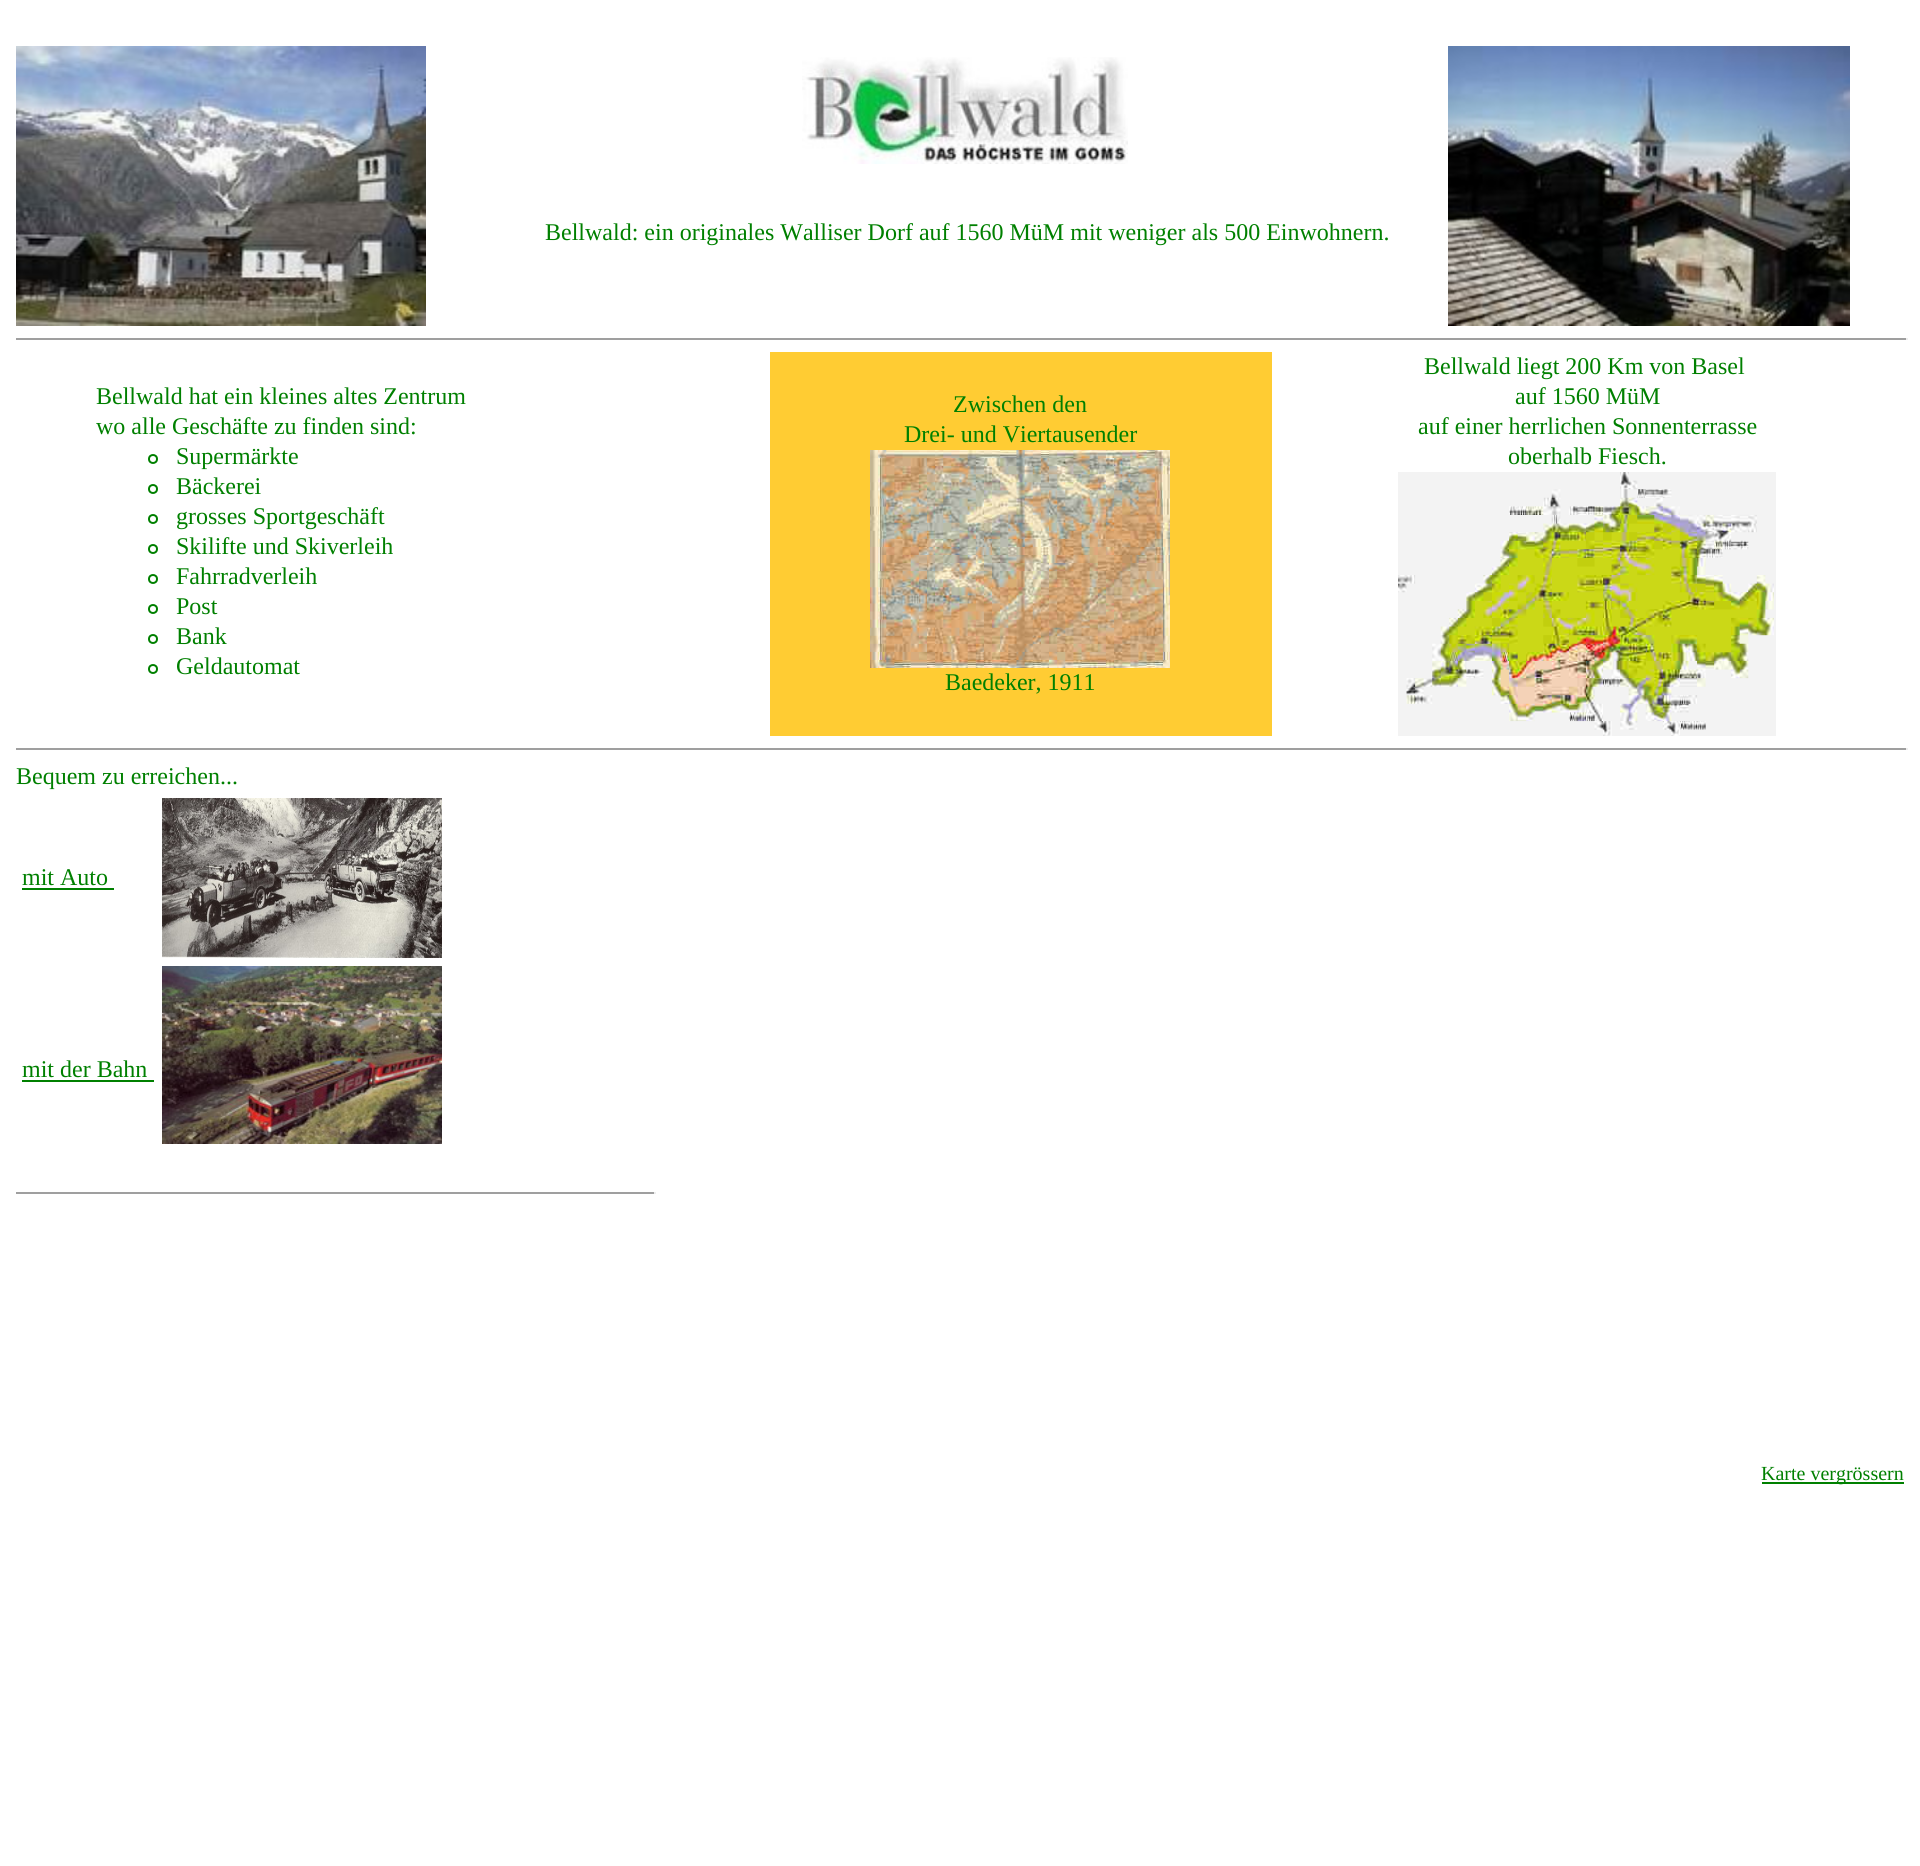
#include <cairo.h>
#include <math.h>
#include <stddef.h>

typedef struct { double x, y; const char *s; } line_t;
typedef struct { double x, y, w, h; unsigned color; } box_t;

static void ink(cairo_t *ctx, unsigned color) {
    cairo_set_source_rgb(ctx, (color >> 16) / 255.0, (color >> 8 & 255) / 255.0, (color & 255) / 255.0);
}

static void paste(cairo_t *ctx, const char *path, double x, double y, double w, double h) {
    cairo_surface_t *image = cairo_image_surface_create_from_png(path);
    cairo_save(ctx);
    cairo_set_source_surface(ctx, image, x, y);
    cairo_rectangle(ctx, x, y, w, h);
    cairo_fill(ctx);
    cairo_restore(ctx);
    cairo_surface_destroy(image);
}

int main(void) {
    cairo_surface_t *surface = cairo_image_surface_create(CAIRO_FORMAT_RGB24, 1920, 1866);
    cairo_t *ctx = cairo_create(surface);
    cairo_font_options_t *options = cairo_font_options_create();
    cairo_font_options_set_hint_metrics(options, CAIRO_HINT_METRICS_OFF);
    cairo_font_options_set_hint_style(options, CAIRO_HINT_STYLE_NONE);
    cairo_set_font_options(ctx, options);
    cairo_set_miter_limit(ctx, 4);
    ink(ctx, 0xFFFFFF);
    cairo_paint(ctx);
    paste(ctx, "media/1.png", 16, 46, 410, 280);
    paste(ctx, "media/2.png", 802, 57, 326, 107);
    cairo_select_font_face(ctx, "Liberation Serif", CAIRO_FONT_SLANT_NORMAL, CAIRO_FONT_WEIGHT_NORMAL);
    cairo_set_font_size(ctx, 24);
    ink(ctx, 0x008000);
    cairo_move_to(ctx, 545, 240);
    cairo_show_text(ctx, "Bellwald: ein originales Walliser Dorf auf 1560 MüM mit weniger als 500 Einwohnern.");
    paste(ctx, "media/3.png", 1448, 46, 402, 280);
    ink(ctx, 0x9F9F9F);
    cairo_rectangle(ctx, 16, 338, 1892, 2);
    cairo_fill(ctx);
    ink(ctx, 0xEEEEEE);
    cairo_rectangle(ctx, 1906, 338, 2, 2);
    cairo_fill(ctx);
    ink(ctx, 0x008000);
    cairo_move_to(ctx, 96, 404);
    cairo_show_text(ctx, "Bellwald hat ein kleines altes Zentrum");
    cairo_move_to(ctx, 96, 434);
    cairo_show_text(ctx, "wo alle Geschäfte zu finden sind:");
    cairo_new_path(ctx);
    cairo_arc(ctx, 153, 459, 4, 0, 2 * M_PI);
    cairo_stroke(ctx);
    cairo_move_to(ctx, 176, 464);
    cairo_show_text(ctx, "Supermärkte");
    cairo_new_path(ctx);
    cairo_arc(ctx, 153, 489, 4, 0, 2 * M_PI);
    cairo_stroke(ctx);
    cairo_move_to(ctx, 176, 494);
    cairo_show_text(ctx, "Bäckerei");
    cairo_new_path(ctx);
    cairo_arc(ctx, 153, 519, 4, 0, 2 * M_PI);
    cairo_stroke(ctx);
    cairo_move_to(ctx, 176, 524);
    cairo_show_text(ctx, "grosses Sportgeschäft");
    cairo_new_path(ctx);
    cairo_arc(ctx, 153, 549, 4, 0, 2 * M_PI);
    cairo_stroke(ctx);
    cairo_move_to(ctx, 176, 554);
    cairo_show_text(ctx, "Skilifte und Skiverleih");
    cairo_new_path(ctx);
    cairo_arc(ctx, 153, 579, 4, 0, 2 * M_PI);
    cairo_stroke(ctx);
    cairo_move_to(ctx, 176, 584);
    cairo_show_text(ctx, "Fahrradverleih");
    cairo_new_path(ctx);
    cairo_arc(ctx, 153, 609, 4, 0, 2 * M_PI);
    cairo_stroke(ctx);
    cairo_move_to(ctx, 176, 614);
    cairo_show_text(ctx, "Post");
    cairo_new_path(ctx);
    cairo_arc(ctx, 153, 639, 4, 0, 2 * M_PI);
    cairo_stroke(ctx);
    cairo_move_to(ctx, 176, 644);
    cairo_show_text(ctx, "Bank");
    cairo_new_path(ctx);
    cairo_arc(ctx, 153, 669, 4, 0, 2 * M_PI);
    cairo_stroke(ctx);
    cairo_move_to(ctx, 176, 674);
    cairo_show_text(ctx, "Geldautomat");
    ink(ctx, 0xFFCC33);
    cairo_rectangle(ctx, 770, 352, 502, 384);
    cairo_fill(ctx);
    ink(ctx, 0x008000);
    cairo_move_to(ctx, 953, 412);
    cairo_show_text(ctx, "Zwischen den");
    cairo_move_to(ctx, 904, 442);
    cairo_show_text(ctx, "Drei- und Viertausender");
    paste(ctx, "media/4.png", 870, 450, 300, 218);
    {
        static const line_t items[] = {
            {945, 690, "Baedeker, 1911"},
            {1424, 374, "Bellwald liegt 200 Km von Basel"},
            {1515, 404, "auf 1560 MüM"},
            {1418, 434, "auf einer herrlichen Sonnenterrasse"},
            {1508, 464, "oberhalb Fiesch."},
        };
        for (size_t i = 0; i < sizeof items / sizeof *items; i++) {
            cairo_move_to(ctx, items[i].x, items[i].y);
            cairo_show_text(ctx, items[i].s);
        }
    }
    paste(ctx, "media/5.png", 1398, 472, 378, 264);
    ink(ctx, 0x9F9F9F);
    cairo_rectangle(ctx, 16, 748, 1892, 2);
    cairo_fill(ctx);
    ink(ctx, 0xEEEEEE);
    cairo_rectangle(ctx, 1906, 748, 2, 2);
    cairo_fill(ctx);
    ink(ctx, 0x008000);
    cairo_move_to(ctx, 16, 784);
    cairo_show_text(ctx, "Bequem zu erreichen...");
    cairo_move_to(ctx, 22, 885);
    cairo_show_text(ctx, "mit Auto");
    cairo_rectangle(ctx, 22, 888, 92, 2);
    cairo_fill(ctx);
    paste(ctx, "media/6.png", 162, 798, 280, 160);
    cairo_move_to(ctx, 22, 1077);
    cairo_show_text(ctx, "mit der Bahn");
    cairo_rectangle(ctx, 22, 1080, 132, 2);
    cairo_fill(ctx);
    paste(ctx, "media/7.png", 162, 966, 280, 178);
    {
        static const box_t items[] = {
            {16, 1192, 640, 2, 0x9F9F9F},
            {654, 1192, 2, 2, 0xEEEEEE},
            {1762, 1482, 142, 2, 0x008000},
        };
        for (size_t i = 0; i < sizeof items / sizeof *items; i++) {
            ink(ctx, items[i].color);
            cairo_rectangle(ctx, items[i].x, items[i].y, items[i].w, items[i].h);
            cairo_fill(ctx);
        }
    }
    cairo_set_font_size(ctx, 20);
    cairo_move_to(ctx, 1761, 1480);
    cairo_show_text(ctx, "Karte vergrössern");
    cairo_surface_write_to_png(surface, "image.png");
    cairo_font_options_destroy(options);
    cairo_destroy(ctx);
    cairo_surface_destroy(surface);
    return 0;
}
